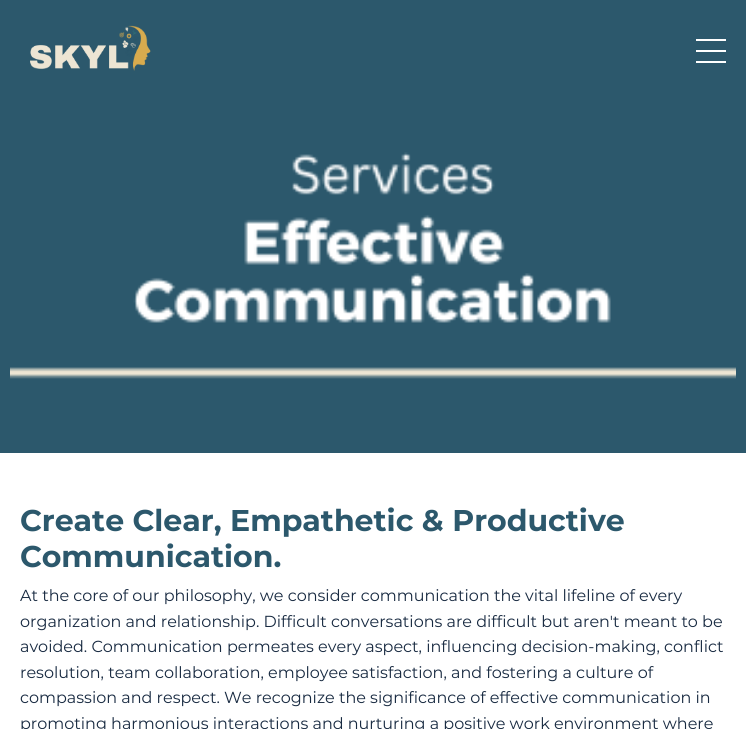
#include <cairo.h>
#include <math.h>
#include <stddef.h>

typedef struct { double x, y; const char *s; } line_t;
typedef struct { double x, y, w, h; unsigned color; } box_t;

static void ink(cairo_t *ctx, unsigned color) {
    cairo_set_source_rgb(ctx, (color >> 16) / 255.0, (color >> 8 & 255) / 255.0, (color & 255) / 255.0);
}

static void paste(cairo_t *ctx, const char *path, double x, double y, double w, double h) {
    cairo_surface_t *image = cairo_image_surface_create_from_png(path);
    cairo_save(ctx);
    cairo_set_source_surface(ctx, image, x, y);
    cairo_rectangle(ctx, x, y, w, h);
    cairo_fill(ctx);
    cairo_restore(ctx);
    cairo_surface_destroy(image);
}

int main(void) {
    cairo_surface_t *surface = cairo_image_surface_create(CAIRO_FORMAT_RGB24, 746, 729);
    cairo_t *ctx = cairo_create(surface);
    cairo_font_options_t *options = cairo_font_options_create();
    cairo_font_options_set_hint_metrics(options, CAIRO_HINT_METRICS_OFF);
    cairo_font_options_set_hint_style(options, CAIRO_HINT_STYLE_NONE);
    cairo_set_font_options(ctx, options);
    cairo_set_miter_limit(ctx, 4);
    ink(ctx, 0x2C586C);
    cairo_paint(ctx);
    paste(ctx, "media/1.png", 30, 25, 121, 46);
    {
        static const box_t items[] = {
            {696, 39, 30, 2, 0xFFFFFF},
            {696, 50, 30, 2, 0xFFFFFF},
            {696, 61, 30, 2, 0xFFFFFF},
        };
        for (size_t i = 0; i < sizeof items / sizeof *items; i++) {
            ink(ctx, items[i].color);
            cairo_rectangle(ctx, items[i].x, items[i].y, items[i].w, items[i].h);
            cairo_fill(ctx);
        }
    }
    paste(ctx, "media/2.png", 10, 152, 726, 227);
    cairo_rectangle(ctx, 0, 453, 746, 276);
    cairo_fill(ctx);
    cairo_select_font_face(ctx, "Montserrat", CAIRO_FONT_SLANT_NORMAL, CAIRO_FONT_WEIGHT_BOLD);
    cairo_set_font_size(ctx, 30);
    ink(ctx, 0x2C586C);
    cairo_move_to(ctx, 20, 531);
    cairo_show_text(ctx, "Create Clear, Empathetic & Productive");
    cairo_move_to(ctx, 20, 567);
    cairo_show_text(ctx, "Communication.");
    cairo_select_font_face(ctx, "Montserrat", CAIRO_FONT_SLANT_NORMAL, CAIRO_FONT_WEIGHT_NORMAL);
    cairo_set_font_size(ctx, 16);
    ink(ctx, 0x182A41);
    {
        static const line_t items[] = {
            {20, 601, "At the core of our philosophy, we consider communication the vital lifeline of every"},
            {20, 627, "organization and relationship. Difficult conversations are difficult but aren't meant to be"},
            {20, 652, "avoided. Communication permeates every aspect, influencing decision-making, conflict"},
            {20, 678, "resolution, team collaboration, employee satisfaction, and fostering a culture of"},
            {20, 703, "compassion and respect. We recognize the significance of effective communication in"},
            {20, 729, "promoting harmonious interactions and nurturing a positive work environment where"},
        };
        for (size_t i = 0; i < sizeof items / sizeof *items; i++) {
            cairo_move_to(ctx, items[i].x, items[i].y);
            cairo_show_text(ctx, items[i].s);
        }
    }
    cairo_surface_write_to_png(surface, "image.png");
    cairo_font_options_destroy(options);
    cairo_destroy(ctx);
    cairo_surface_destroy(surface);
    return 0;
}
